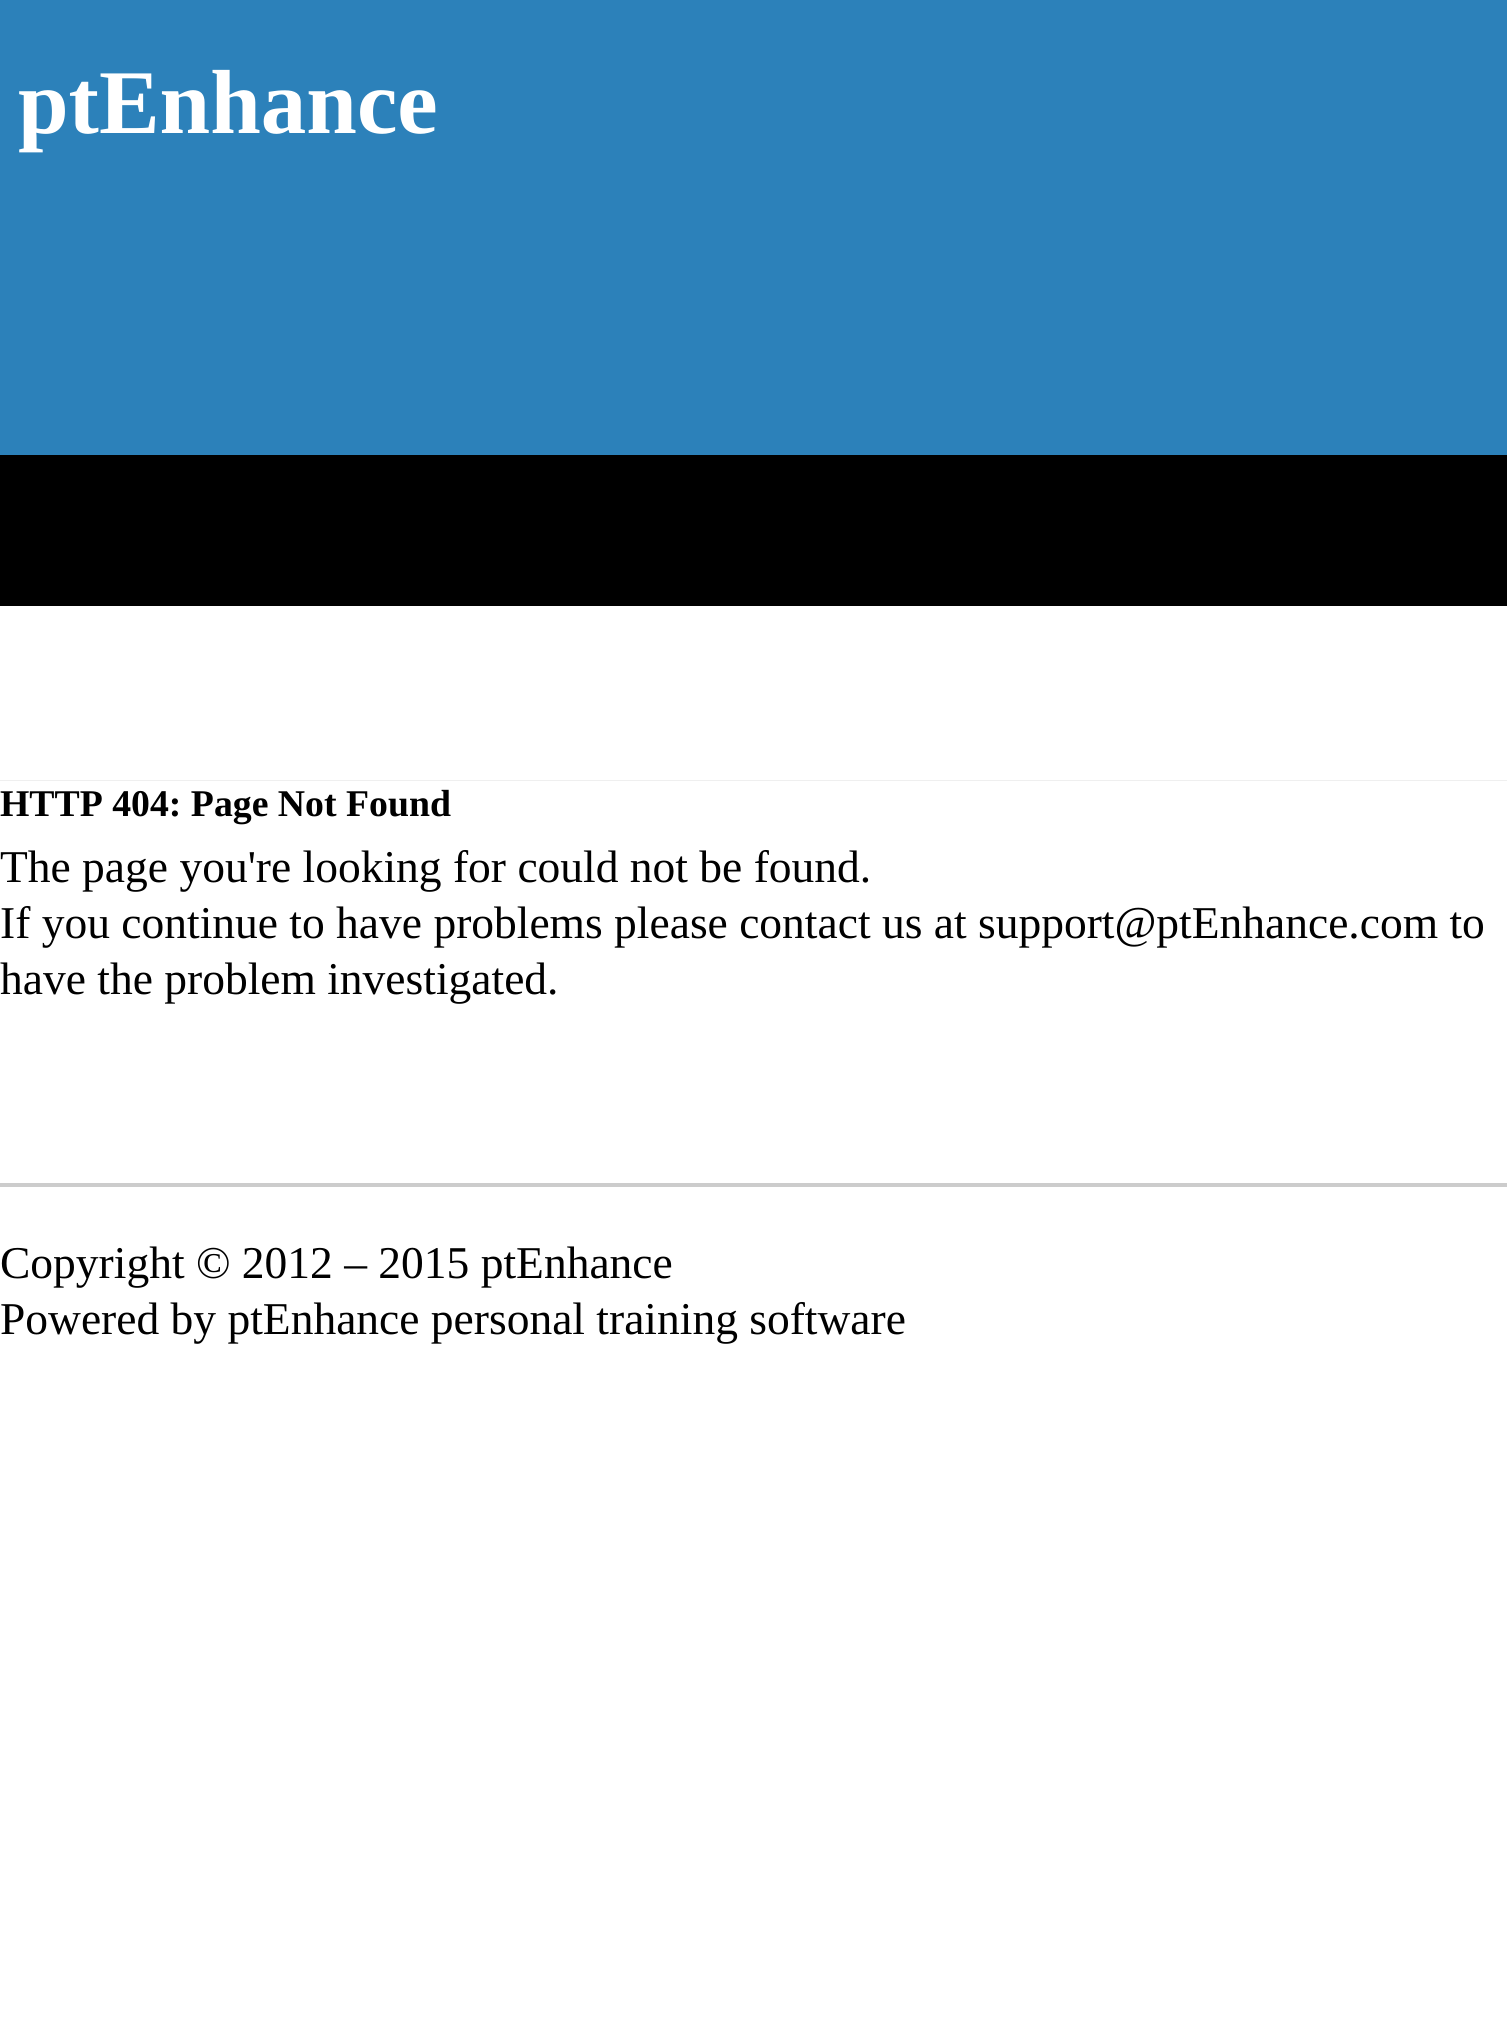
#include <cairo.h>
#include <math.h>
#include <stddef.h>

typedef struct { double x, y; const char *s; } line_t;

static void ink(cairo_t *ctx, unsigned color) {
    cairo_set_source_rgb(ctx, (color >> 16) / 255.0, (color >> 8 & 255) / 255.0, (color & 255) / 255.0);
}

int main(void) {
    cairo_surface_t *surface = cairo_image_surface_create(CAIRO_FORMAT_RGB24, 1507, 2032);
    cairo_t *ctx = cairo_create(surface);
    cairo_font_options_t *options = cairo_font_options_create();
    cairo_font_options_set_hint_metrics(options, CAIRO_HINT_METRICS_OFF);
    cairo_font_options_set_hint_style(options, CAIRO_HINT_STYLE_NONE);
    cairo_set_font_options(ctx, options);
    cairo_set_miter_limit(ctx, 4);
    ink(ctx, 0xFFFFFF);
    cairo_paint(ctx);
    ink(ctx, 0x2C81BA);
    cairo_rectangle(ctx, 0, 0, 1507, 455);
    cairo_fill(ctx);
    cairo_select_font_face(ctx, "Liberation Serif", CAIRO_FONT_SLANT_NORMAL, CAIRO_FONT_WEIGHT_BOLD);
    cairo_set_font_size(ctx, 91);
    ink(ctx, 0xFFFFFF);
    cairo_move_to(ctx, 18, 133);
    cairo_show_text(ctx, "ptEnhance");
    ink(ctx, 0x000000);
    cairo_rectangle(ctx, 0, 455, 1507, 151);
    cairo_fill(ctx);
    ink(ctx, 0xEFEFEF);
    cairo_rectangle(ctx, 0, 780, 1507, 1);
    cairo_fill(ctx);
    cairo_set_font_size(ctx, 37.75);
    ink(ctx, 0x000000);
    cairo_move_to(ctx, 0, 816);
    cairo_show_text(ctx, "HTTP 404: Page Not Found");
    cairo_select_font_face(ctx, "Liberation Serif", CAIRO_FONT_SLANT_NORMAL, CAIRO_FONT_WEIGHT_NORMAL);
    cairo_set_font_size(ctx, 45.5);
    {
        static const line_t items[] = {
            {0, 882, "The page you're looking for could not be found."},
            {0, 938, "If you continue to have problems please contact us at support@ptEnhance.com to"},
            {0, 994, "have the problem investigated."},
        };
        for (size_t i = 0; i < sizeof items / sizeof *items; i++) {
            cairo_move_to(ctx, items[i].x, items[i].y);
            cairo_show_text(ctx, items[i].s);
        }
    }
    ink(ctx, 0xCCCCCC);
    cairo_rectangle(ctx, 0, 1183, 1507, 4);
    cairo_fill(ctx);
    ink(ctx, 0x000000);
    cairo_move_to(ctx, 0, 1278);
    cairo_show_text(ctx, "Copyright © 2012 – 2015 ptEnhance");
    cairo_move_to(ctx, 0, 1334);
    cairo_show_text(ctx, "Powered by ptEnhance personal training software");
    cairo_surface_write_to_png(surface, "image.png");
    cairo_font_options_destroy(options);
    cairo_destroy(ctx);
    cairo_surface_destroy(surface);
    return 0;
}
